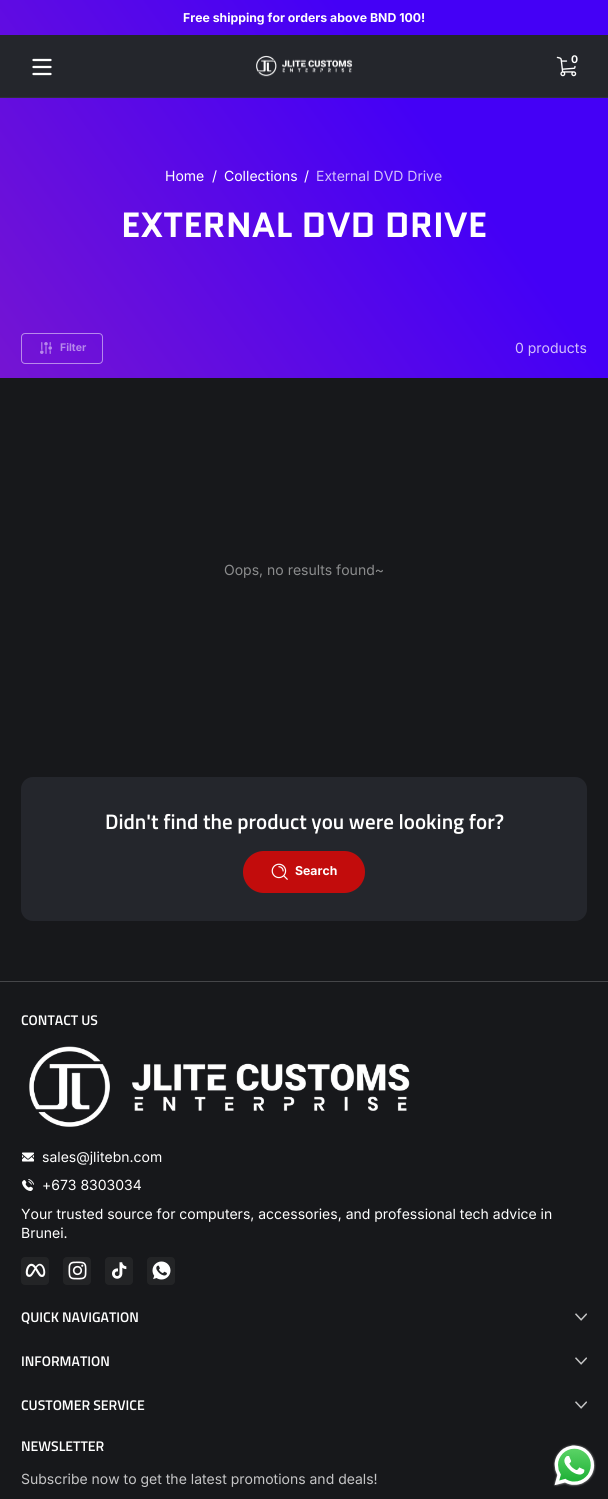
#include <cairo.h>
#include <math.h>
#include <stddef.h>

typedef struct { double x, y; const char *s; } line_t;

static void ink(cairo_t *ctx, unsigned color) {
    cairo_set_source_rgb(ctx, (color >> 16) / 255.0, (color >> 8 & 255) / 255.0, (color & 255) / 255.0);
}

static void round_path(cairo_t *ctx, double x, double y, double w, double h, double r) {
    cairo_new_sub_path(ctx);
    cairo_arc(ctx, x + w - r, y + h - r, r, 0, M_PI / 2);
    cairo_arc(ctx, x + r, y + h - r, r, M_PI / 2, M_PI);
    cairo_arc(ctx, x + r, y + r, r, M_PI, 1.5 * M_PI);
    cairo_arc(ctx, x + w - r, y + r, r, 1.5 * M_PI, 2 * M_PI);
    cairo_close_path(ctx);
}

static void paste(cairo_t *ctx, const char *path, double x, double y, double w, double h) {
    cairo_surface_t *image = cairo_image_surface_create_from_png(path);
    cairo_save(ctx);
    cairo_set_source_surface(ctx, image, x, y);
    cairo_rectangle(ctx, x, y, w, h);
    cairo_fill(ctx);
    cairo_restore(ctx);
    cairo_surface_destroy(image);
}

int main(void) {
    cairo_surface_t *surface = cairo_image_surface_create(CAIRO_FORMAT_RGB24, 608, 1499);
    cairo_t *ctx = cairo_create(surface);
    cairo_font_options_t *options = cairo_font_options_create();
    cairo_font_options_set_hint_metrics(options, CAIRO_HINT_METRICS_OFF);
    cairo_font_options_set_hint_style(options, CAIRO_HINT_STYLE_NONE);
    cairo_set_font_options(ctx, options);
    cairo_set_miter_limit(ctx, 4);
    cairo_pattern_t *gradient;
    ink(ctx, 0x17181B);
    cairo_paint(ctx);
    gradient = cairo_pattern_create_linear(-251, 1153, 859, 346);
    cairo_pattern_add_color_stop_rgba(gradient, 0.12, 0.651, 0.161, 0.686, 1);
    cairo_pattern_add_color_stop_rgba(gradient, 0.84, 0.267, 0, 0.965, 1);
    cairo_set_source(ctx, gradient);
    cairo_pattern_destroy(gradient);
    cairo_rectangle(ctx, 0, 0, 608, 35);
    cairo_fill(ctx);
    cairo_select_font_face(ctx, "Inter", CAIRO_FONT_SLANT_NORMAL, CAIRO_FONT_WEIGHT_BOLD);
    cairo_set_font_size(ctx, 12.25);
    ink(ctx, 0xFFFFFF);
    cairo_move_to(ctx, 183, 22);
    cairo_show_text(ctx, "Free shipping for orders above BND 100!");
    ink(ctx, 0x24262C);
    cairo_rectangle(ctx, 0, 35, 608, 62);
    cairo_fill(ctx);
    cairo_new_path(ctx);
    cairo_move_to(ctx, 33.5, 60);
    cairo_line_to(ctx, 50.5, 60);
    cairo_move_to(ctx, 33.5, 67);
    cairo_line_to(ctx, 50.5, 67);
    cairo_move_to(ctx, 33.5, 74);
    cairo_line_to(ctx, 50.5, 74);
    ink(ctx, 0xFFFFFF);
    cairo_set_line_width(ctx, 2.3);
    cairo_set_line_cap(ctx, CAIRO_LINE_CAP_ROUND);
    cairo_stroke(ctx);
    paste(ctx, "media/1.png", 256, 55, 97, 22);
    paste(ctx, "media/2.png", 556, 56, 21, 21);
    cairo_set_font_size(ctx, 10.5);
    cairo_move_to(ctx, 571, 63);
    cairo_show_text(ctx, "0");
    ink(ctx, 0x2F3137);
    cairo_rectangle(ctx, 0, 97, 608, 1);
    cairo_fill(ctx);
    gradient = cairo_pattern_create_linear(-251, 1153, 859, 346);
    cairo_pattern_add_color_stop_rgba(gradient, 0.12, 0.651, 0.161, 0.686, 1);
    cairo_pattern_add_color_stop_rgba(gradient, 0.84, 0.267, 0, 0.965, 1);
    cairo_set_source(ctx, gradient);
    cairo_pattern_destroy(gradient);
    cairo_rectangle(ctx, 0, 98, 608, 280);
    cairo_fill(ctx);
    cairo_select_font_face(ctx, "Inter", CAIRO_FONT_SLANT_NORMAL, CAIRO_FONT_WEIGHT_NORMAL);
    cairo_set_font_size(ctx, 14);
    ink(ctx, 0xFFFFFF);
    {
        static const line_t items[] = {
            {165, 181, "Home"},
            {212, 181, "/"},
            {224, 181, "Collections"},
            {304, 181, "/"},
        };
        for (size_t i = 0; i < sizeof items / sizeof *items; i++) {
            cairo_move_to(ctx, items[i].x, items[i].y);
            cairo_show_text(ctx, items[i].s);
        }
    }
    ink(ctx, 0xD2C0FC);
    cairo_move_to(ctx, 316, 181);
    cairo_show_text(ctx, "External DVD Drive");
    cairo_select_font_face(ctx, "Quantico", CAIRO_FONT_SLANT_NORMAL, CAIRO_FONT_WEIGHT_BOLD);
    cairo_set_font_size(ctx, 35);
    ink(ctx, 0xFFFFFF);
    cairo_move_to(ctx, 121, 237);
    cairo_show_text(ctx, "EXTERNAL DVD DRIVE");
    paste(ctx, "media/3.png", 40, 342, 12, 12);
    round_path(ctx, 21.5, 333.5, 81, 30, 3.5);
    cairo_set_source_rgba(ctx, 1, 1, 1, 0.5);
    cairo_set_line_width(ctx, 1);
    cairo_set_line_cap(ctx, CAIRO_LINE_CAP_BUTT);
    cairo_stroke(ctx);
    cairo_select_font_face(ctx, "Inter", CAIRO_FONT_SLANT_NORMAL, CAIRO_FONT_WEIGHT_BOLD);
    cairo_set_font_size(ctx, 10.5);
    ink(ctx, 0xB688EB);
    cairo_move_to(ctx, 60, 351);
    cairo_show_text(ctx, "Filter");
    cairo_select_font_face(ctx, "Inter", CAIRO_FONT_SLANT_NORMAL, CAIRO_FONT_WEIGHT_NORMAL);
    cairo_set_font_size(ctx, 14);
    ink(ctx, 0xD2C0FC);
    cairo_move_to(ctx, 515, 353);
    cairo_show_text(ctx, "0 products");
    ink(ctx, 0x8B8C8D);
    cairo_move_to(ctx, 224, 575);
    cairo_show_text(ctx, "Oops, no results found~");
    ink(ctx, 0x24262C);
    round_path(ctx, 21, 777, 566, 144, 12);
    cairo_fill(ctx);
    cairo_select_font_face(ctx, "Titillium Web SemiBold", CAIRO_FONT_SLANT_NORMAL, CAIRO_FONT_WEIGHT_NORMAL);
    cairo_set_font_size(ctx, 21);
    ink(ctx, 0xFFFFFF);
    cairo_move_to(ctx, 105, 829);
    cairo_show_text(ctx, "Didn't find the product you were looking for?");
    ink(ctx, 0xBF0000);
    round_path(ctx, 243, 851, 122, 42, 21);
    cairo_fill(ctx);
    paste(ctx, "media/4.png", 271, 863, 17, 17);
    cairo_set_source_rgba(ctx, 1, 1, 1, 0.05);
    cairo_new_path(ctx);
    cairo_move_to(ctx, 264, 851);
    cairo_line_to(ctx, 344, 851);
    cairo_curve_to(ctx, 356, 851, 365, 860, 365, 872);
    cairo_curve_to(ctx, 365, 884, 356, 893, 344, 893);
    cairo_line_to(ctx, 264, 893);
    cairo_curve_to(ctx, 252, 893, 243, 884, 243, 872);
    cairo_curve_to(ctx, 243, 860, 252, 851, 264, 851);
    cairo_close_path(ctx);
    cairo_fill(ctx);
    cairo_select_font_face(ctx, "Inter", CAIRO_FONT_SLANT_NORMAL, CAIRO_FONT_WEIGHT_BOLD);
    cairo_set_font_size(ctx, 12.25);
    ink(ctx, 0xFFFFFF);
    cairo_move_to(ctx, 295, 875);
    cairo_show_text(ctx, "Search");
    ink(ctx, 0x454649);
    cairo_rectangle(ctx, 0, 981, 608, 1);
    cairo_fill(ctx);
    cairo_select_font_face(ctx, "Titillium Web SemiBold", CAIRO_FONT_SLANT_NORMAL, CAIRO_FONT_WEIGHT_NORMAL);
    cairo_set_font_size(ctx, 14);
    ink(ctx, 0xFFFFFF);
    cairo_move_to(ctx, 21, 1025);
    cairo_show_text(ctx, "CONTACT US");
    paste(ctx, "media/5.png", 29, 1046, 381, 81);
    paste(ctx, "media/6.png", 22, 1152, 12, 10);
    cairo_select_font_face(ctx, "Inter", CAIRO_FONT_SLANT_NORMAL, CAIRO_FONT_WEIGHT_NORMAL);
    cairo_move_to(ctx, 42, 1162);
    cairo_show_text(ctx, "sales@jlitebn.com");
    paste(ctx, "media/7.png", 22, 1179, 12, 12);
    {
        static const line_t items[] = {
            {42, 1190, "+673 8303034"},
            {21, 1219, "Your trusted source for computers, accessories, and professional tech advice in"},
            {21, 1238, "Brunei."},
        };
        for (size_t i = 0; i < sizeof items / sizeof *items; i++) {
            cairo_move_to(ctx, items[i].x, items[i].y);
            cairo_show_text(ctx, items[i].s);
        }
    }
    ink(ctx, 0x232426);
    round_path(ctx, 21, 1257, 28, 28, 4);
    cairo_fill(ctx);
    paste(ctx, "media/8.png", 25, 1263, 21, 14);
    round_path(ctx, 63, 1257, 28, 28, 4);
    cairo_fill(ctx);
    paste(ctx, "media/9.png", 68, 1261, 19, 19);
    round_path(ctx, 105, 1257, 28, 28, 4);
    cairo_fill(ctx);
    paste(ctx, "media/10.png", 112, 1262, 15, 17);
    round_path(ctx, 147, 1257, 28, 28, 4);
    cairo_fill(ctx);
    paste(ctx, "media/11.png", 152, 1261, 19, 19);
    cairo_select_font_face(ctx, "Titillium Web SemiBold", CAIRO_FONT_SLANT_NORMAL, CAIRO_FONT_WEIGHT_NORMAL);
    ink(ctx, 0xFFFFFF);
    cairo_move_to(ctx, 21, 1322);
    cairo_show_text(ctx, "QUICK NAVIGATION");
    paste(ctx, "media/12.png", 575, 1313, 12, 8);
    cairo_move_to(ctx, 21, 1366);
    cairo_show_text(ctx, "INFORMATION");
    paste(ctx, "media/12.png", 575, 1357, 12, 8);
    cairo_move_to(ctx, 21, 1410);
    cairo_show_text(ctx, "CUSTOMER SERVICE");
    paste(ctx, "media/12.png", 575, 1401, 12, 8);
    cairo_move_to(ctx, 21, 1451);
    cairo_show_text(ctx, "NEWSLETTER");
    cairo_select_font_face(ctx, "Inter", CAIRO_FONT_SLANT_NORMAL, CAIRO_FONT_WEIGHT_NORMAL);
    ink(ctx, 0xC5C5C6);
    cairo_move_to(ctx, 21, 1484);
    cairo_show_text(ctx, "Subscribe now to get the latest promotions and deals!");
    paste(ctx, "media/13.png", 553, 1444, 43, 43);
    cairo_surface_write_to_png(surface, "image.png");
    cairo_font_options_destroy(options);
    cairo_destroy(ctx);
    cairo_surface_destroy(surface);
    return 0;
}
